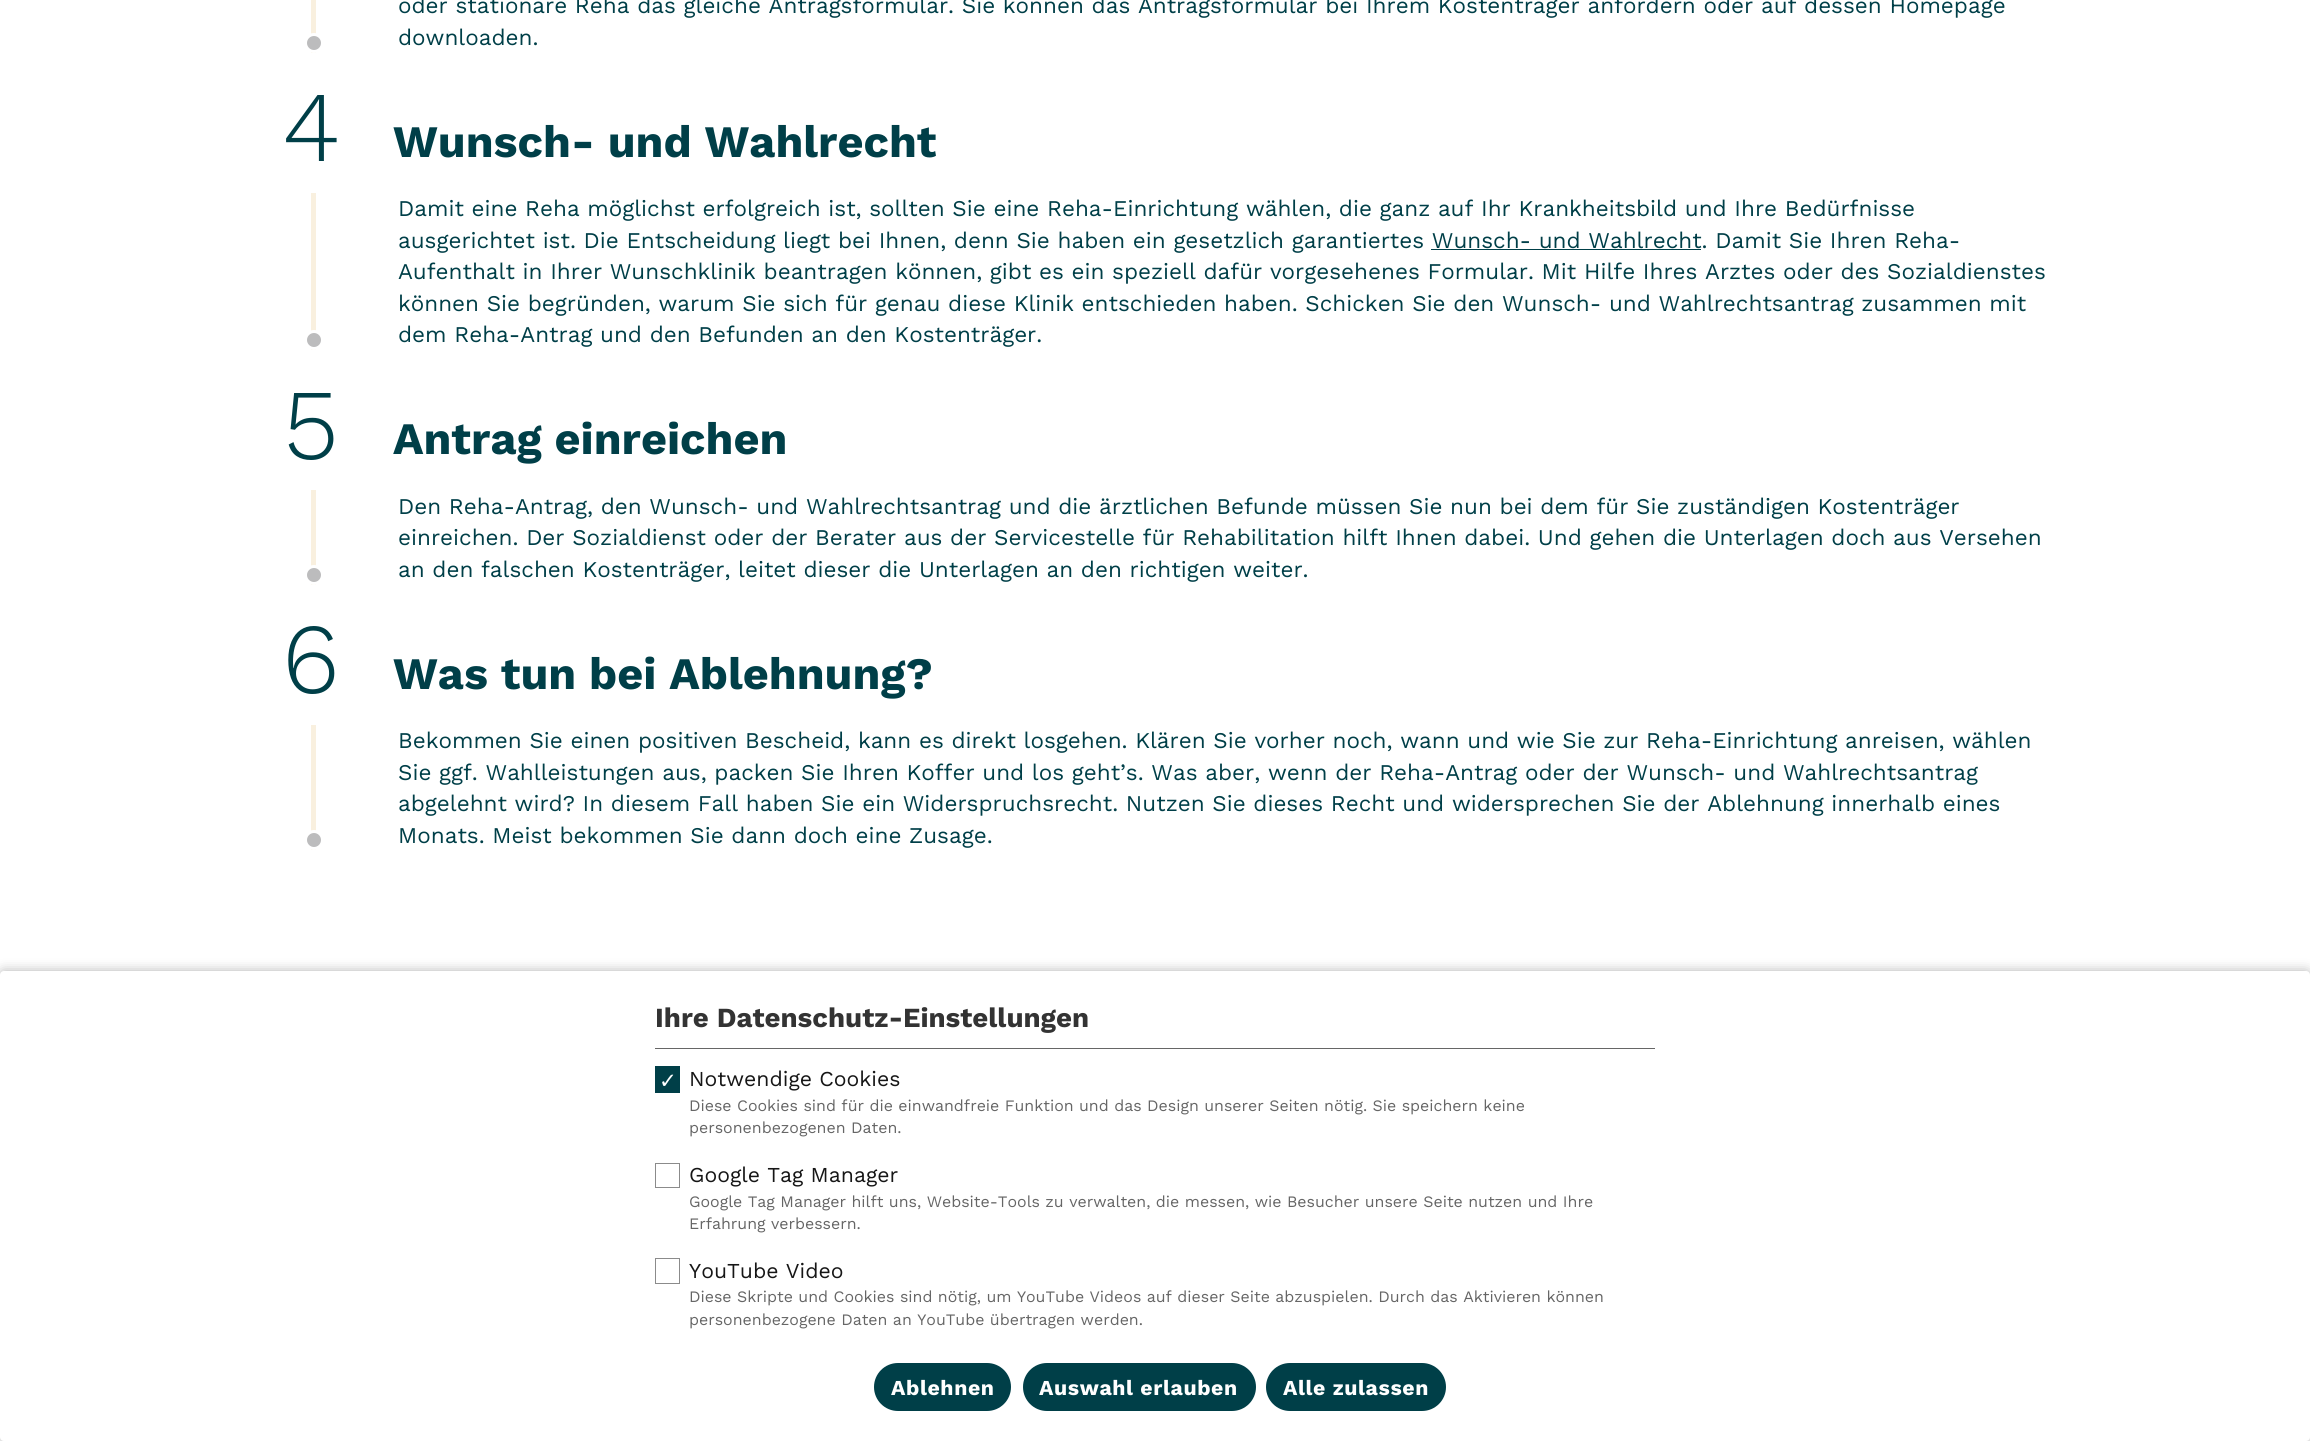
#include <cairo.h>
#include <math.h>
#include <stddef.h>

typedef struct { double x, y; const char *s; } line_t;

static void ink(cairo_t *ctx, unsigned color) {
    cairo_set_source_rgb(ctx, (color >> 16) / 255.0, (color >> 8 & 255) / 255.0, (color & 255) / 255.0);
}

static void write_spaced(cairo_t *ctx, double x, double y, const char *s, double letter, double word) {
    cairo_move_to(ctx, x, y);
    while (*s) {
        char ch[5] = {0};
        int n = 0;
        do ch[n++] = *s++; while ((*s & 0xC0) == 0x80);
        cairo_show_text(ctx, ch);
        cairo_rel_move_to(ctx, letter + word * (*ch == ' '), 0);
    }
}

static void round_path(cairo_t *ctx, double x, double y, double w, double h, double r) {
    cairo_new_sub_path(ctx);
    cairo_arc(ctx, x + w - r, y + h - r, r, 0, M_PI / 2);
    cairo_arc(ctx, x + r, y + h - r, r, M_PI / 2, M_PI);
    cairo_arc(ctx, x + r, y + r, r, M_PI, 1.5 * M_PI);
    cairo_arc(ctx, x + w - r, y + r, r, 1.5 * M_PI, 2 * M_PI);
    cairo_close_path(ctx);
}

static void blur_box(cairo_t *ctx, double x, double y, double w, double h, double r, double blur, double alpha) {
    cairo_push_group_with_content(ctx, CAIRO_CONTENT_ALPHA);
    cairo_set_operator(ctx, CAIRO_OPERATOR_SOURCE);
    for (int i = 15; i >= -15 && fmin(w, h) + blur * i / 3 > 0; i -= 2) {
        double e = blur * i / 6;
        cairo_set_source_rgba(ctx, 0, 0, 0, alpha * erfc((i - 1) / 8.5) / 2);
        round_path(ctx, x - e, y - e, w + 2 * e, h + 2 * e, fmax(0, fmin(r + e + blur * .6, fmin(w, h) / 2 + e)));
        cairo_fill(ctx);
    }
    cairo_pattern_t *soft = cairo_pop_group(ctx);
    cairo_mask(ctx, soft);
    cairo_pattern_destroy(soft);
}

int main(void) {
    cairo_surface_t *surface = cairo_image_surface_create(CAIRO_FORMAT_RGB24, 2310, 1441);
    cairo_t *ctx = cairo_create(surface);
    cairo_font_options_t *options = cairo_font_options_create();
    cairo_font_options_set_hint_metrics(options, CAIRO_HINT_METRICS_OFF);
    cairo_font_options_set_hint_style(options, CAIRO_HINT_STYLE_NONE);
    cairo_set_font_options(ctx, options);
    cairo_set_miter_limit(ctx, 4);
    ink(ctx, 0xFFFFFF);
    cairo_paint(ctx);
    ink(ctx, 0xF9F0DF);
    cairo_rectangle(ctx, 311, 0, 5, 53);
    cairo_fill(ctx);
    cairo_select_font_face(ctx, "Work Sans", CAIRO_FONT_SLANT_NORMAL, CAIRO_FONT_WEIGHT_NORMAL);
    cairo_set_font_size(ctx, 22.5);
    ink(ctx, 0x003F48);
    cairo_move_to(ctx, 398, 13);
    cairo_show_text(ctx, "oder stationäre Reha das gleiche Antragsformular. Sie können das Antragsformular bei Ihrem Kostenträger anfordern oder auf dessen Homepage");
    ink(ctx, 0xBCBCBD);
    cairo_new_path(ctx);
    cairo_arc(ctx, 314, 43, 8.5, 0, 2 * M_PI);
    cairo_fill_preserve(ctx);
    ink(ctx, 0xFFFFFF);
    cairo_set_line_width(ctx, 3);
    cairo_stroke(ctx);
    ink(ctx, 0x003F48);
    cairo_move_to(ctx, 398, 45);
    cairo_show_text(ctx, "downloaden.");
    cairo_select_font_face(ctx, "Work Sans Light", CAIRO_FONT_SLANT_NORMAL, CAIRO_FONT_WEIGHT_NORMAL);
    cairo_set_font_size(ctx, 100);
    cairo_move_to(ctx, 282, 161);
    cairo_show_text(ctx, "4");
    cairo_select_font_face(ctx, "Work Sans", CAIRO_FONT_SLANT_NORMAL, CAIRO_FONT_WEIGHT_BOLD);
    cairo_set_font_size(ctx, 45);
    cairo_move_to(ctx, 393, 157);
    cairo_show_text(ctx, "Wunsch- und Wahlrecht");
    ink(ctx, 0xF9F0DF);
    cairo_rectangle(ctx, 311, 193, 5, 157);
    cairo_fill(ctx);
    cairo_select_font_face(ctx, "Work Sans", CAIRO_FONT_SLANT_NORMAL, CAIRO_FONT_WEIGHT_NORMAL);
    cairo_set_font_size(ctx, 22.5);
    ink(ctx, 0x003F48);
    cairo_move_to(ctx, 398, 216);
    cairo_show_text(ctx, "Damit eine Reha möglichst erfolgreich ist, sollten Sie eine Reha-Einrichtung wählen, die ganz auf Ihr Krankheitsbild und Ihre Bedürfnisse");
    cairo_move_to(ctx, 398, 248);
    cairo_show_text(ctx, "ausgerichtet ist. Die Entscheidung liegt bei Ihnen, denn Sie haben ein gesetzlich garantiertes Wunsch- und Wahlrecht. Damit Sie Ihren Reha-");
    cairo_rectangle(ctx, 1431, 249, 270, 1);
    cairo_fill(ctx);
    cairo_move_to(ctx, 398, 279);
    cairo_show_text(ctx, "Aufenthalt in Ihrer Wunschklinik beantragen können, gibt es ein speziell dafür vorgesehenes Formular. Mit Hilfe Ihres Arztes oder des Sozialdienstes");
    cairo_move_to(ctx, 398, 311);
    cairo_show_text(ctx, "können Sie begründen, warum Sie sich für genau diese Klinik entschieden haben. Schicken Sie den Wunsch- und Wahlrechtsantrag zusammen mit");
    ink(ctx, 0xBCBCBD);
    cairo_new_path(ctx);
    cairo_arc(ctx, 314, 340, 8.5, 0, 2 * M_PI);
    cairo_fill_preserve(ctx);
    ink(ctx, 0xFFFFFF);
    cairo_stroke(ctx);
    ink(ctx, 0x003F48);
    cairo_move_to(ctx, 398, 342);
    cairo_show_text(ctx, "dem Reha-Antrag und den Befunden an den Kostenträger.");
    cairo_select_font_face(ctx, "Work Sans Light", CAIRO_FONT_SLANT_NORMAL, CAIRO_FONT_WEIGHT_NORMAL);
    cairo_set_font_size(ctx, 100);
    cairo_move_to(ctx, 283, 459);
    cairo_show_text(ctx, "5");
    cairo_select_font_face(ctx, "Work Sans", CAIRO_FONT_SLANT_NORMAL, CAIRO_FONT_WEIGHT_BOLD);
    cairo_set_font_size(ctx, 45);
    cairo_move_to(ctx, 393, 454);
    cairo_show_text(ctx, "Antrag einreichen");
    ink(ctx, 0xF9F0DF);
    cairo_rectangle(ctx, 311, 490, 5, 95);
    cairo_fill(ctx);
    cairo_select_font_face(ctx, "Work Sans", CAIRO_FONT_SLANT_NORMAL, CAIRO_FONT_WEIGHT_NORMAL);
    cairo_set_font_size(ctx, 22.5);
    ink(ctx, 0x003F48);
    cairo_move_to(ctx, 398, 514);
    cairo_show_text(ctx, "Den Reha-Antrag, den Wunsch- und Wahlrechtsantrag und die ärztlichen Befunde müssen Sie nun bei dem für Sie zuständigen Kostenträger");
    cairo_move_to(ctx, 398, 545);
    cairo_show_text(ctx, "einreichen. Der Sozialdienst oder der Berater aus der Servicestelle für Rehabilitation hilft Ihnen dabei. Und gehen die Unterlagen doch aus Versehen");
    ink(ctx, 0xBCBCBD);
    cairo_new_path(ctx);
    cairo_arc(ctx, 314, 575, 8.5, 0, 2 * M_PI);
    cairo_fill_preserve(ctx);
    ink(ctx, 0xFFFFFF);
    cairo_stroke(ctx);
    ink(ctx, 0x003F48);
    cairo_move_to(ctx, 398, 577);
    cairo_show_text(ctx, "an den falschen Kostenträger, leitet dieser die Unterlagen an den richtigen weiter.");
    cairo_select_font_face(ctx, "Work Sans Light", CAIRO_FONT_SLANT_NORMAL, CAIRO_FONT_WEIGHT_NORMAL);
    cairo_set_font_size(ctx, 100);
    cairo_move_to(ctx, 282, 693);
    cairo_show_text(ctx, "6");
    cairo_select_font_face(ctx, "Work Sans", CAIRO_FONT_SLANT_NORMAL, CAIRO_FONT_WEIGHT_BOLD);
    cairo_set_font_size(ctx, 45);
    cairo_move_to(ctx, 393, 689);
    cairo_show_text(ctx, "Was tun bei Ablehnung?");
    ink(ctx, 0xF9F0DF);
    cairo_rectangle(ctx, 311, 725, 5, 125);
    cairo_fill(ctx);
    cairo_select_font_face(ctx, "Work Sans", CAIRO_FONT_SLANT_NORMAL, CAIRO_FONT_WEIGHT_NORMAL);
    cairo_set_font_size(ctx, 22.5);
    ink(ctx, 0x003F48);
    {
        static const line_t items[] = {
            {398, 748, "Bekommen Sie einen positiven Bescheid, kann es direkt losgehen. Klären Sie vorher noch, wann und wie Sie zur Reha-Einrichtung anreisen, wählen"},
            {398, 780, "Sie ggf. Wahlleistungen aus, packen Sie Ihren Koffer und los geht’s. Was aber, wenn der Reha-Antrag oder der Wunsch- und Wahlrechtsantrag"},
            {398, 811, "abgelehnt wird? In diesem Fall haben Sie ein Widerspruchsrecht. Nutzen Sie dieses Recht und widersprechen Sie der Ablehnung innerhalb eines"},
        };
        for (size_t i = 0; i < sizeof items / sizeof *items; i++) {
            cairo_move_to(ctx, items[i].x, items[i].y);
            cairo_show_text(ctx, items[i].s);
        }
    }
    ink(ctx, 0xBCBCBD);
    cairo_new_path(ctx);
    cairo_arc(ctx, 314, 840, 8.5, 0, 2 * M_PI);
    cairo_fill_preserve(ctx);
    ink(ctx, 0xFFFFFF);
    cairo_stroke(ctx);
    ink(ctx, 0x003F48);
    cairo_move_to(ctx, 398, 843);
    cairo_show_text(ctx, "Monats. Meist bekommen Sie dann doch eine Zusage.");
    ink(ctx, 0x000000);
    blur_box(ctx, 0, 971, 2310, 470, 4, 6, 0.3);
    ink(ctx, 0xFFFFFF);
    round_path(ctx, 0, 971, 2310, 470, 4);
    cairo_fill(ctx);
    ink(ctx, 0x666666);
    cairo_rectangle(ctx, 655, 1048, 1000, 1);
    cairo_fill(ctx);
    cairo_select_font_face(ctx, "Work Sans", CAIRO_FONT_SLANT_NORMAL, CAIRO_FONT_WEIGHT_BOLD);
    cairo_set_font_size(ctx, 27.6);
    ink(ctx, 0x333333);
    cairo_move_to(ctx, 655, 1027);
    cairo_show_text(ctx, "Ihre Datenschutz-Einstellungen");
    ink(ctx, 0x003F48);
    cairo_rectangle(ctx, 655, 1066, 25, 27);
    cairo_fill(ctx);
    cairo_select_font_face(ctx, "DejaVu Sans", CAIRO_FONT_SLANT_NORMAL, CAIRO_FONT_WEIGHT_NORMAL);
    cairo_set_font_size(ctx, 21.25);
    ink(ctx, 0xFFFFFF);
    cairo_move_to(ctx, 659, 1088);
    cairo_show_text(ctx, "✓");
    cairo_select_font_face(ctx, "Work Sans", CAIRO_FONT_SLANT_NORMAL, CAIRO_FONT_WEIGHT_NORMAL);
    ink(ctx, 0x161616);
    cairo_move_to(ctx, 689, 1086);
    cairo_show_text(ctx, "Notwendige Cookies");
    cairo_set_font_size(ctx, 15.95);
    ink(ctx, 0x666666);
    cairo_move_to(ctx, 689, 1111);
    cairo_show_text(ctx, "Diese Cookies sind für die einwandfreie Funktion und das Design unserer Seiten nötig. Sie speichern keine");
    cairo_move_to(ctx, 689, 1133);
    cairo_show_text(ctx, "personenbezogenen Daten.");
    cairo_rectangle(ctx, 655.5, 1163.5, 24, 24);
    ink(ctx, 0x8B8B8B);
    cairo_set_line_width(ctx, 1);
    cairo_stroke(ctx);
    cairo_set_font_size(ctx, 21.25);
    ink(ctx, 0x161616);
    cairo_move_to(ctx, 689, 1182);
    cairo_show_text(ctx, "Google Tag Manager");
    cairo_set_font_size(ctx, 15.95);
    ink(ctx, 0x666666);
    cairo_move_to(ctx, 689, 1207);
    cairo_show_text(ctx, "Google Tag Manager hilft uns, Website-Tools zu verwalten, die messen, wie Besucher unsere Seite nutzen und Ihre");
    cairo_move_to(ctx, 689, 1229);
    cairo_show_text(ctx, "Erfahrung verbessern.");
    cairo_rectangle(ctx, 655.5, 1258.5, 24, 25);
    ink(ctx, 0x8B8B8B);
    cairo_stroke(ctx);
    cairo_set_font_size(ctx, 21.25);
    ink(ctx, 0x161616);
    cairo_move_to(ctx, 689, 1278);
    cairo_show_text(ctx, "YouTube Video");
    cairo_set_font_size(ctx, 15.95);
    ink(ctx, 0x666666);
    cairo_move_to(ctx, 689, 1302);
    cairo_show_text(ctx, "Diese Skripte und Cookies sind nötig, um YouTube Videos auf dieser Seite abzuspielen. Durch das Aktivieren können");
    cairo_move_to(ctx, 689, 1325);
    cairo_show_text(ctx, "personenbezogene Daten an YouTube übertragen werden.");
    ink(ctx, 0x003F48);
    round_path(ctx, 874, 1363, 137, 48, 24);
    cairo_fill(ctx);
    cairo_select_font_face(ctx, "Work Sans", CAIRO_FONT_SLANT_NORMAL, CAIRO_FONT_WEIGHT_BOLD);
    cairo_set_font_size(ctx, 21.25);
    ink(ctx, 0xFFFFFF);
    write_spaced(ctx, 891, 1395, "Ablehnen", 0.6, 0);
    ink(ctx, 0x003F48);
    round_path(ctx, 1023, 1363, 233, 48, 24);
    cairo_fill(ctx);
    ink(ctx, 0xFFFFFF);
    write_spaced(ctx, 1039, 1395, "Auswahl erlauben", 0.6, 0);
    ink(ctx, 0x003F48);
    round_path(ctx, 1266, 1363, 180, 48, 24);
    cairo_fill(ctx);
    ink(ctx, 0xFFFFFF);
    write_spaced(ctx, 1283, 1395, "Alle zulassen", 0.6, 0);
    cairo_surface_write_to_png(surface, "image.png");
    cairo_font_options_destroy(options);
    cairo_destroy(ctx);
    cairo_surface_destroy(surface);
    return 0;
}
